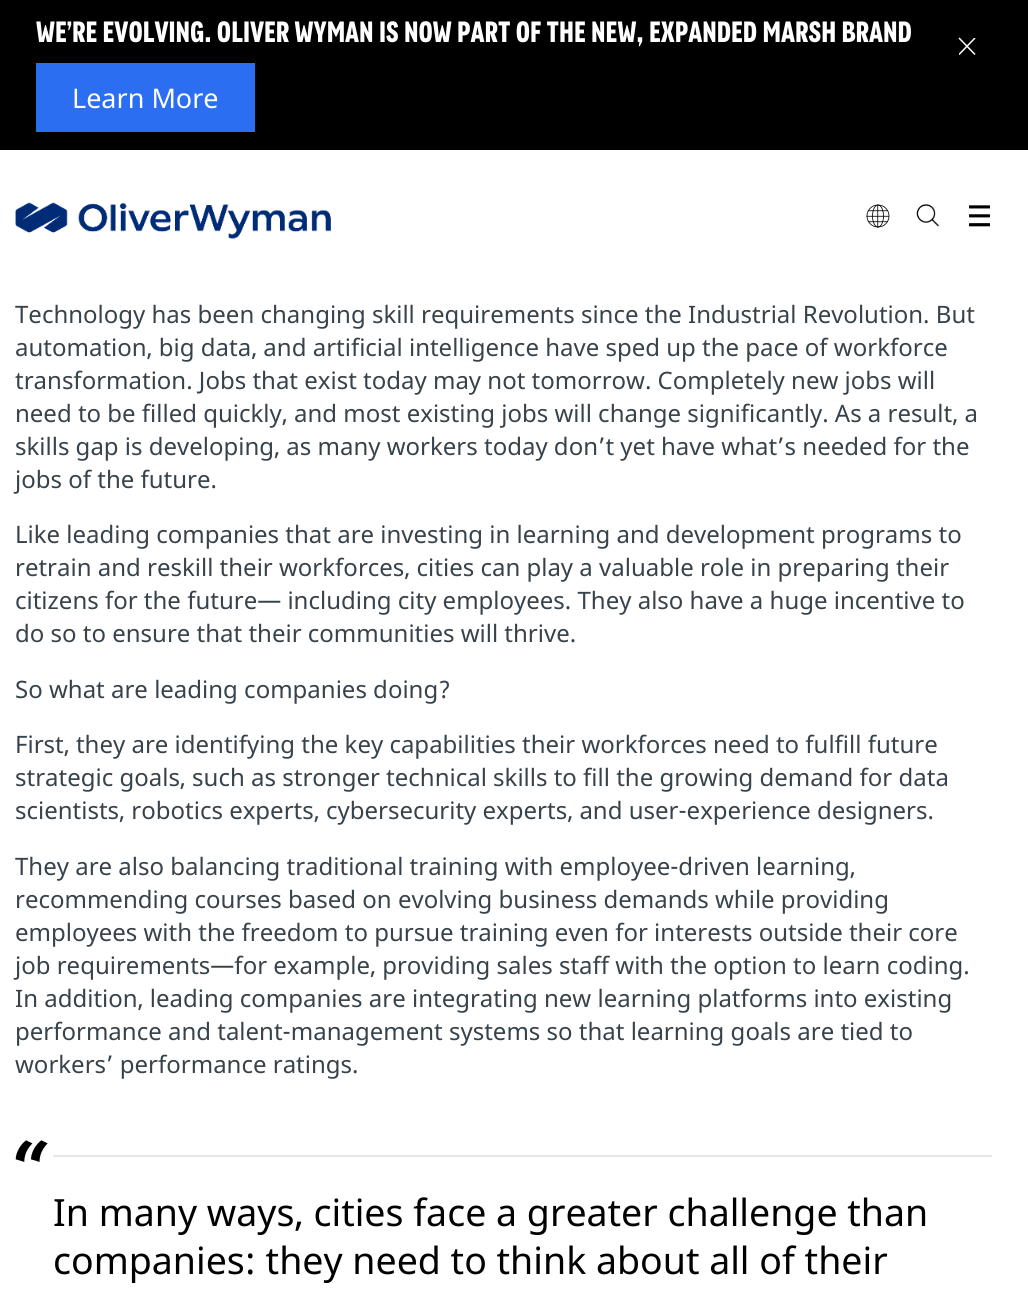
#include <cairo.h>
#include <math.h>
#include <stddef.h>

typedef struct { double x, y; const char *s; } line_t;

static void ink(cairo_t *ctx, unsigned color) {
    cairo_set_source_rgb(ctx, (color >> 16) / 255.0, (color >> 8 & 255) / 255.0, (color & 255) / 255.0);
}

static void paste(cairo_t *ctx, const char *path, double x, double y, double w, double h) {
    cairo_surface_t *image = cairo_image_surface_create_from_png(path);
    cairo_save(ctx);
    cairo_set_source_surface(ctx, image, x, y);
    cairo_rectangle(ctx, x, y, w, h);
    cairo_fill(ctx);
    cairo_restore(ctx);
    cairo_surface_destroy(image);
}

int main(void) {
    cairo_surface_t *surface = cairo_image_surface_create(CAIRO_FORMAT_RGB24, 1028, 1305);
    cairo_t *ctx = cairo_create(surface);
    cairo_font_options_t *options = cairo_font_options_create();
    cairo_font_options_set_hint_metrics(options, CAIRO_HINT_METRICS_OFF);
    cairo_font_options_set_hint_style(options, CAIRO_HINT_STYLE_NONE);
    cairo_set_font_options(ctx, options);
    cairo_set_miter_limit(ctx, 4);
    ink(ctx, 0xFFFFFF);
    cairo_paint(ctx);
    ink(ctx, 0x000000);
    cairo_rectangle(ctx, 0, 0, 1028, 150);
    cairo_fill(ctx);
    cairo_select_font_face(ctx, "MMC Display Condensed", CAIRO_FONT_SLANT_NORMAL, CAIRO_FONT_WEIGHT_BOLD);
    cairo_set_font_size(ctx, 27);
    ink(ctx, 0xFFFFFF);
    cairo_move_to(ctx, 36, 42);
    cairo_show_text(ctx, "We’re evolving. Oliver Wyman is now part of the new, expanded Marsh brand");
    cairo_save(ctx);
    cairo_rectangle(ctx, 959, 38, 18, 18);
    cairo_clip(ctx);
    cairo_new_path(ctx);
    cairo_move_to(ctx, 975, 38);
    cairo_line_to(ctx, 959, 54.5);
    cairo_set_line_width(ctx, 1.5);
    cairo_stroke(ctx);
    cairo_restore(ctx);
    cairo_new_path(ctx);
    cairo_move_to(ctx, 975, 54.5);
    cairo_line_to(ctx, 959, 38);
    cairo_set_line_width(ctx, 1.5);
    cairo_stroke(ctx);
    ink(ctx, 0x2C6EF2);
    cairo_rectangle(ctx, 36, 63, 219, 69);
    cairo_fill(ctx);
    cairo_select_font_face(ctx, "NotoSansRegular", CAIRO_FONT_SLANT_NORMAL, CAIRO_FONT_WEIGHT_NORMAL);
    ink(ctx, 0xFFFFFF);
    cairo_move_to(ctx, 72, 108);
    cairo_show_text(ctx, "Learn More");
    paste(ctx, "media/1.png", 15, 202, 316, 37);
    paste(ctx, "media/2.png", 866, 204, 24, 24);
    paste(ctx, "media/3.png", 916, 204, 23, 23);
    paste(ctx, "media/4.png", 969, 205, 21, 22);
    cairo_set_font_size(ctx, 24);
    ink(ctx, 0x37424A);
    {
        static const line_t items[] = {
            {15, 323, "Technology has been changing skill requirements since the Industrial Revolution. But"},
            {15, 356, "automation, big data, and artificial intelligence have sped up the pace of workforce"},
            {15, 389, "transformation. Jobs that exist today may not tomorrow. Completely new jobs will"},
            {15, 422, "need to be filled quickly, and most existing jobs will change significantly. As a result, a"},
            {15, 455, "skills gap is developing, as many workers today don’t yet have what’s needed for the"},
            {15, 488, "jobs of the future."},
            {15, 543, "Like leading companies that are investing in learning and development programs to"},
            {15, 576, "retrain and reskill their workforces, cities can play a valuable role in preparing their"},
            {15, 609, "citizens for the future— including city employees. They also have a huge incentive to"},
            {15, 642, "do so to ensure that their communities will thrive."},
            {15, 698, "So what are leading companies doing?"},
            {15, 753, "First, they are identifying the key capabilities their workforces need to fulfill future"},
            {15, 786, "strategic goals, such as stronger technical skills to fill the growing demand for data"},
            {15, 819, "scientists, robotics experts, cybersecurity experts, and user-experience designers."},
            {15, 875, "They are also balancing traditional training with employee-driven learning,"},
            {15, 908, "recommending courses based on evolving business demands while providing"},
            {15, 941, "employees with the freedom to pursue training even for interests outside their core"},
            {15, 974, "job requirements—for example, providing sales staff with the option to learn coding."},
            {15, 1007, "In addition, leading companies are integrating new learning platforms into existing"},
            {15, 1040, "performance and talent-management systems so that learning goals are tied to"},
            {15, 1073, "workers’ performance ratings."},
        };
        for (size_t i = 0; i < sizeof items / sizeof *items; i++) {
            cairo_move_to(ctx, items[i].x, items[i].y);
            cairo_show_text(ctx, items[i].s);
        }
    }
    ink(ctx, 0xE7E7E7);
    cairo_rectangle(ctx, 53, 1155, 939, 2);
    cairo_fill(ctx);
    paste(ctx, "media/5.png", 15, 1140, 33, 22);
    cairo_set_font_size(ctx, 37.5);
    ink(ctx, 0x000000);
    cairo_move_to(ctx, 53, 1226);
    cairo_show_text(ctx, "In many ways, cities face a greater challenge than");
    cairo_move_to(ctx, 53, 1274);
    cairo_show_text(ctx, "companies: they need to think about all of their");
    cairo_surface_write_to_png(surface, "image.png");
    cairo_font_options_destroy(options);
    cairo_destroy(ctx);
    cairo_surface_destroy(surface);
    return 0;
}
